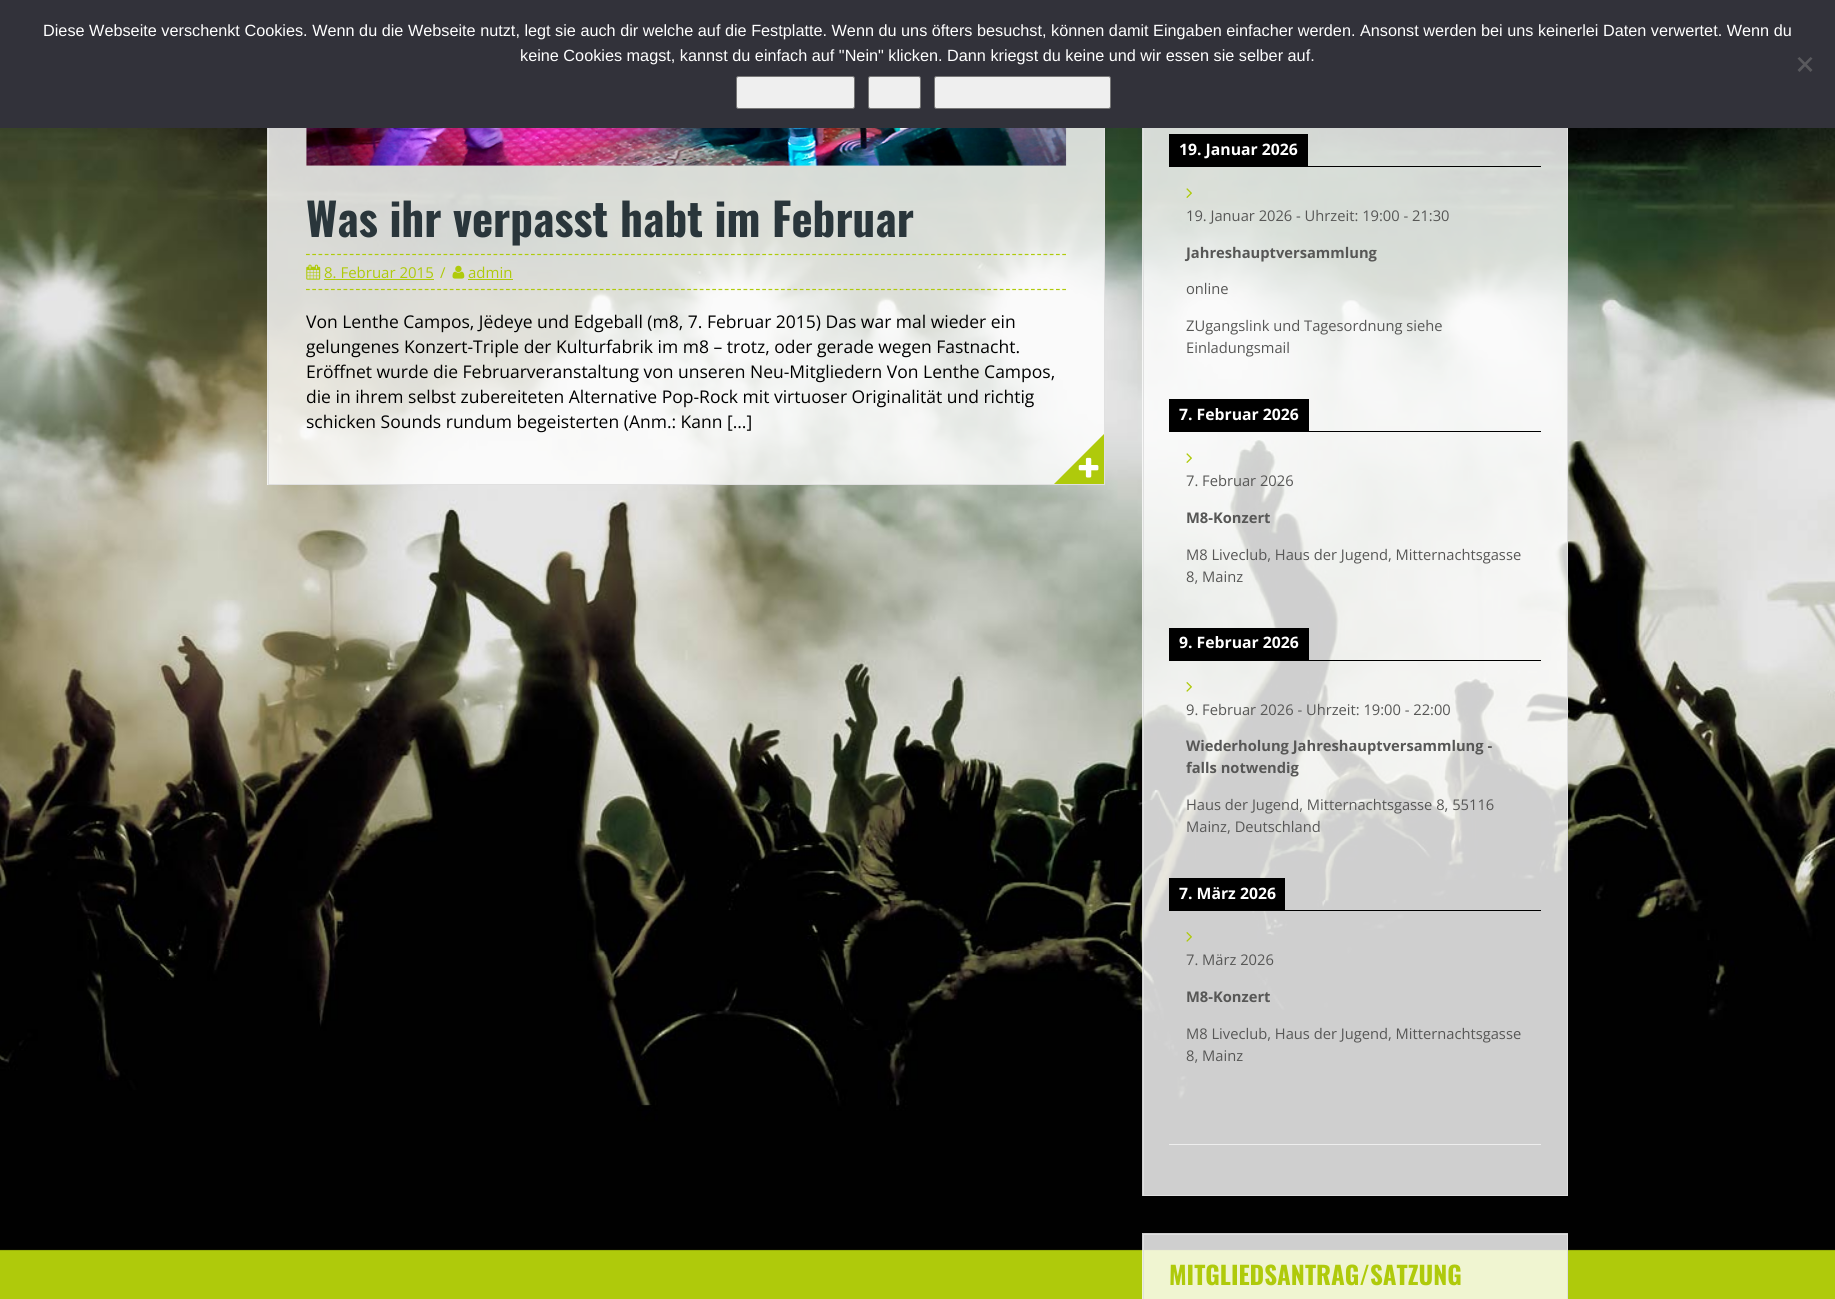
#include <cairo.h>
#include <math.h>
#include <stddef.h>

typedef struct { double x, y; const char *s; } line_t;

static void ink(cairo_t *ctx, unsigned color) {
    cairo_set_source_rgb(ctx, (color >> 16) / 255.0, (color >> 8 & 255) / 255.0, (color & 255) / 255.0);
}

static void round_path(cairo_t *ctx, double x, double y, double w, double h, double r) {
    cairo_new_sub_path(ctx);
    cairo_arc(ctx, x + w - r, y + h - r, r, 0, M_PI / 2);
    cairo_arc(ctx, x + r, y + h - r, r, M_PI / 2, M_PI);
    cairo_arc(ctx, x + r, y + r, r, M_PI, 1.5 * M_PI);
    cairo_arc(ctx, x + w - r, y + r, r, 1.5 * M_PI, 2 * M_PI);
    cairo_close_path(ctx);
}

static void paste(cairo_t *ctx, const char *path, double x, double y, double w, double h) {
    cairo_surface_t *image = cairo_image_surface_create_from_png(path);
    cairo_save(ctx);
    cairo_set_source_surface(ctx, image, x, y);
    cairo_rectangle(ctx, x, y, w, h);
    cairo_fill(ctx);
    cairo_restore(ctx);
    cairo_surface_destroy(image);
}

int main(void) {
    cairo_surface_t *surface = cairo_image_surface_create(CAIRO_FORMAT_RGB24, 1835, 1299);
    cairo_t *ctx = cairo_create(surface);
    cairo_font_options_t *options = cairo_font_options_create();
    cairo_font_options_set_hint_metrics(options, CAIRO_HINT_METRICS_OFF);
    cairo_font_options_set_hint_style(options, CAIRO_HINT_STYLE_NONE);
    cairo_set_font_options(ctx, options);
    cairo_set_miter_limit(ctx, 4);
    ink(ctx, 0xAFCA0B);
    cairo_paint(ctx);
    paste(ctx, "media/1.png", 0, 128, 1835, 1123);
    cairo_set_source_rgba(ctx, 1, 1, 1, 0.81);
    cairo_rectangle(ctx, 267, 128, 837, 357);
    cairo_fill(ctx);
    cairo_rectangle(ctx, 268.5, -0.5, 836, 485);
    ink(ctx, 0xE0E0E0);
    cairo_set_line_width(ctx, 1);
    cairo_stroke(ctx);
    cairo_set_source_rgba(ctx, 1, 1, 1, 0.81);
    cairo_rectangle(ctx, 1142, 128, 425, 1068);
    cairo_fill(ctx);
    cairo_rectangle(ctx, 1143.5, -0.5, 424, 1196);
    ink(ctx, 0xE0E0E0);
    cairo_stroke(ctx);
    ink(ctx, 0x32323A);
    cairo_rectangle(ctx, 0, 0, 1835, 128);
    cairo_fill(ctx);
    cairo_select_font_face(ctx, "Liberation Sans", CAIRO_FONT_SLANT_NORMAL, CAIRO_FONT_WEIGHT_NORMAL);
    cairo_set_font_size(ctx, 16.25);
    ink(ctx, 0xFFFFFF);
    cairo_move_to(ctx, 43, 36);
    cairo_show_text(ctx, "Diese Webseite verschenkt Cookies. Wenn du die Webseite nutzt, legt sie auch dir welche auf die Festplatte. Wenn du uns öfters besuchst, können damit Eingaben einfacher werden. Ansonst werden bei uns keinerlei Daten verwertet. Wenn du");
    cairo_move_to(ctx, 520, 61);
    cairo_show_text(ctx, "keine Cookies magst, kannst du einfach auf \"Nein\" klicken. Dann kriegst du keine und wir essen sie selber auf.");
    ink(ctx, 0x59595D);
    cairo_new_path(ctx);
    cairo_move_to(ctx, 1810.5, 57);
    cairo_line_to(ctx, 1812.5, 58.5);
    cairo_line_to(ctx, 1799.5, 72);
    cairo_line_to(ctx, 1797.5, 70);
    cairo_close_path(ctx);
    cairo_fill(ctx);
    cairo_new_path(ctx);
    cairo_move_to(ctx, 1797.5, 58.5);
    cairo_line_to(ctx, 1799.5, 57);
    cairo_line_to(ctx, 1812.5, 70);
    cairo_line_to(ctx, 1810.5, 72);
    cairo_close_path(ctx);
    cairo_fill(ctx);
    ink(ctx, 0xEFEFEF);
    round_path(ctx, 736.5, 76.5, 118, 32, 2);
    cairo_fill_preserve(ctx);
    ink(ctx, 0x767676);
    cairo_stroke(ctx);
    ink(ctx, 0xEFEFEF);
    round_path(ctx, 868.5, 76.5, 52, 32, 2);
    cairo_fill_preserve(ctx);
    ink(ctx, 0x767676);
    cairo_stroke(ctx);
    ink(ctx, 0xEFEFEF);
    round_path(ctx, 934.5, 76.5, 176, 32, 2);
    cairo_fill_preserve(ctx);
    ink(ctx, 0x767676);
    cairo_stroke(ctx);
    paste(ctx, "media/2.png", 306, 128, 761, 38);
    cairo_select_font_face(ctx, "Oswald", CAIRO_FONT_SLANT_NORMAL, CAIRO_FONT_WEIGHT_BOLD);
    cairo_set_font_size(ctx, 45);
    ink(ctx, 0x2A363B);
    cairo_move_to(ctx, 306, 237);
    cairo_show_text(ctx, "Was ihr verpasst habt im Februar");
    cairo_new_path(ctx);
    cairo_move_to(ctx, 306, 254.5);
    cairo_line_to(ctx, 1066, 254.5);
    ink(ctx, 0xAFCA0B);
    cairo_set_line_width(ctx, 1.2);
    cairo_set_dash(ctx, (double[]){3.75, 2.5}, 2, 0);
    cairo_stroke(ctx);
    cairo_new_path(ctx);
    cairo_move_to(ctx, 306, 289.5);
    cairo_line_to(ctx, 1066, 289.5);
    cairo_stroke(ctx);
    paste(ctx, "media/3.png", 306, 264, 15, 16);
    cairo_select_font_face(ctx, "Open Sans", CAIRO_FONT_SLANT_NORMAL, CAIRO_FONT_WEIGHT_NORMAL);
    cairo_set_font_size(ctx, 15);
    cairo_move_to(ctx, 324, 278);
    cairo_show_text(ctx, "8. Februar 2015");
    cairo_rectangle(ctx, 324, 279, 110, 1);
    cairo_fill(ctx);
    cairo_move_to(ctx, 440, 278);
    cairo_show_text(ctx, "/");
    paste(ctx, "media/4.png", 452, 265, 13, 14);
    cairo_move_to(ctx, 468, 278);
    cairo_show_text(ctx, "admin");
    cairo_rectangle(ctx, 468, 279, 45, 1);
    cairo_fill(ctx);
    cairo_set_font_size(ctx, 17.5);
    ink(ctx, 0x000000);
    {
        static const line_t items[] = {
            {306, 328, "Von Lenthe Campos, Jëdeye und Edgeball (m8, 7. Februar 2015) Das war mal wieder ein"},
            {306, 353, "gelungenes Konzert-Triple der Kulturfabrik im m8 – trotz, oder gerade wegen Fastnacht."},
            {306, 378, "Eröffnet wurde die Februarveranstaltung von unseren Neu-Mitgliedern Von Lenthe Campos,"},
            {306, 403, "die in ihrem selbst zubereiteten Alternative Pop-Rock mit virtuoser Originalität und richtig"},
            {306, 428, "schicken Sounds rundum begeisterten (Anm.: Kann […]"},
        };
        for (size_t i = 0; i < sizeof items / sizeof *items; i++) {
            cairo_move_to(ctx, items[i].x, items[i].y);
            cairo_show_text(ctx, items[i].s);
        }
    }
    ink(ctx, 0xAFCA0B);
    cairo_new_path(ctx);
    cairo_move_to(ctx, 1104, 434);
    cairo_line_to(ctx, 1104, 484);
    cairo_line_to(ctx, 1054, 484);
    cairo_close_path(ctx);
    cairo_fill(ctx);
    paste(ctx, "media/5.png", 1078, 457, 21, 21);
    ink(ctx, 0x000000);
    cairo_rectangle(ctx, 1169, 166, 372, 1);
    cairo_fill(ctx);
    cairo_rectangle(ctx, 1169, 134, 139, 32);
    cairo_fill(ctx);
    cairo_select_font_face(ctx, "Open Sans", CAIRO_FONT_SLANT_NORMAL, CAIRO_FONT_WEIGHT_BOLD);
    cairo_set_font_size(ctx, 15.75);
    ink(ctx, 0xFFFFFF);
    cairo_move_to(ctx, 1179, 155);
    cairo_show_text(ctx, "19. Januar 2026");
    paste(ctx, "media/6.png", 1186, 188, 6, 10);
    cairo_select_font_face(ctx, "Open Sans", CAIRO_FONT_SLANT_NORMAL, CAIRO_FONT_WEIGHT_NORMAL);
    cairo_set_font_size(ctx, 14.7);
    ink(ctx, 0x575756);
    cairo_move_to(ctx, 1186, 221);
    cairo_show_text(ctx, "19. Januar 2026 - Uhrzeit: 19:00 - 21:30");
    cairo_select_font_face(ctx, "Open Sans", CAIRO_FONT_SLANT_NORMAL, CAIRO_FONT_WEIGHT_BOLD);
    cairo_move_to(ctx, 1186, 258);
    cairo_show_text(ctx, "Jahreshauptversammlung");
    cairo_select_font_face(ctx, "Open Sans", CAIRO_FONT_SLANT_NORMAL, CAIRO_FONT_WEIGHT_NORMAL);
    {
        static const line_t items[] = {
            {1186, 294, "online"},
            {1186, 331, "ZUgangslink und Tagesordnung siehe"},
            {1186, 353, "Einladungsmail"},
        };
        for (size_t i = 0; i < sizeof items / sizeof *items; i++) {
            cairo_move_to(ctx, items[i].x, items[i].y);
            cairo_show_text(ctx, items[i].s);
        }
    }
    ink(ctx, 0x000000);
    cairo_rectangle(ctx, 1169, 431, 372, 1);
    cairo_fill(ctx);
    cairo_rectangle(ctx, 1169, 399, 140, 32);
    cairo_fill(ctx);
    cairo_select_font_face(ctx, "Open Sans", CAIRO_FONT_SLANT_NORMAL, CAIRO_FONT_WEIGHT_BOLD);
    cairo_set_font_size(ctx, 15.75);
    ink(ctx, 0xFFFFFF);
    cairo_move_to(ctx, 1179, 420);
    cairo_show_text(ctx, "7. Februar 2026");
    paste(ctx, "media/7.png", 1186, 453, 6, 10);
    cairo_select_font_face(ctx, "Open Sans", CAIRO_FONT_SLANT_NORMAL, CAIRO_FONT_WEIGHT_NORMAL);
    cairo_set_font_size(ctx, 14.7);
    ink(ctx, 0x575756);
    cairo_move_to(ctx, 1186, 486);
    cairo_show_text(ctx, "7. Februar 2026");
    cairo_select_font_face(ctx, "Open Sans", CAIRO_FONT_SLANT_NORMAL, CAIRO_FONT_WEIGHT_BOLD);
    cairo_move_to(ctx, 1186, 523);
    cairo_show_text(ctx, "M8-Konzert");
    cairo_select_font_face(ctx, "Open Sans", CAIRO_FONT_SLANT_NORMAL, CAIRO_FONT_WEIGHT_NORMAL);
    cairo_move_to(ctx, 1186, 560);
    cairo_show_text(ctx, "M8 Liveclub, Haus der Jugend, Mitternachtsgasse");
    cairo_move_to(ctx, 1186, 582);
    cairo_show_text(ctx, "8, Mainz");
    ink(ctx, 0x000000);
    cairo_rectangle(ctx, 1169, 660, 372, 1);
    cairo_fill(ctx);
    cairo_rectangle(ctx, 1169, 628, 140, 32);
    cairo_fill(ctx);
    cairo_select_font_face(ctx, "Open Sans", CAIRO_FONT_SLANT_NORMAL, CAIRO_FONT_WEIGHT_BOLD);
    cairo_set_font_size(ctx, 15.75);
    ink(ctx, 0xFFFFFF);
    cairo_move_to(ctx, 1179, 648);
    cairo_show_text(ctx, "9. Februar 2026");
    paste(ctx, "media/8.png", 1186, 682, 6, 10);
    cairo_select_font_face(ctx, "Open Sans", CAIRO_FONT_SLANT_NORMAL, CAIRO_FONT_WEIGHT_NORMAL);
    cairo_set_font_size(ctx, 14.7);
    ink(ctx, 0x575756);
    cairo_move_to(ctx, 1186, 715);
    cairo_show_text(ctx, "9. Februar 2026 - Uhrzeit: 19:00 - 22:00");
    cairo_select_font_face(ctx, "Open Sans", CAIRO_FONT_SLANT_NORMAL, CAIRO_FONT_WEIGHT_BOLD);
    cairo_move_to(ctx, 1186, 751);
    cairo_show_text(ctx, "Wiederholung Jahreshauptversammlung -");
    cairo_move_to(ctx, 1186, 773);
    cairo_show_text(ctx, "falls notwendig");
    cairo_select_font_face(ctx, "Open Sans", CAIRO_FONT_SLANT_NORMAL, CAIRO_FONT_WEIGHT_NORMAL);
    cairo_move_to(ctx, 1186, 810);
    cairo_show_text(ctx, "Haus der Jugend, Mitternachtsgasse 8, 55116");
    cairo_move_to(ctx, 1186, 832);
    cairo_show_text(ctx, "Mainz, Deutschland");
    ink(ctx, 0x000000);
    cairo_rectangle(ctx, 1169, 910, 372, 1);
    cairo_fill(ctx);
    cairo_rectangle(ctx, 1169, 878, 116, 32);
    cairo_fill(ctx);
    cairo_select_font_face(ctx, "Open Sans", CAIRO_FONT_SLANT_NORMAL, CAIRO_FONT_WEIGHT_BOLD);
    cairo_set_font_size(ctx, 15.75);
    ink(ctx, 0xFFFFFF);
    cairo_move_to(ctx, 1179, 899);
    cairo_show_text(ctx, "7. März 2026");
    paste(ctx, "media/9.png", 1186, 932, 6, 10);
    cairo_select_font_face(ctx, "Open Sans", CAIRO_FONT_SLANT_NORMAL, CAIRO_FONT_WEIGHT_NORMAL);
    cairo_set_font_size(ctx, 14.7);
    ink(ctx, 0x575756);
    cairo_move_to(ctx, 1186, 965);
    cairo_show_text(ctx, "7. März 2026");
    cairo_select_font_face(ctx, "Open Sans", CAIRO_FONT_SLANT_NORMAL, CAIRO_FONT_WEIGHT_BOLD);
    cairo_move_to(ctx, 1186, 1002);
    cairo_show_text(ctx, "M8-Konzert");
    cairo_select_font_face(ctx, "Open Sans", CAIRO_FONT_SLANT_NORMAL, CAIRO_FONT_WEIGHT_NORMAL);
    cairo_move_to(ctx, 1186, 1039);
    cairo_show_text(ctx, "M8 Liveclub, Haus der Jugend, Mitternachtsgasse");
    cairo_move_to(ctx, 1186, 1061);
    cairo_show_text(ctx, "8, Mainz");
    ink(ctx, 0xEEEEEE);
    cairo_rectangle(ctx, 1169, 1144, 372, 1);
    cairo_fill(ctx);
    cairo_set_source_rgba(ctx, 1, 1, 1, 0.81);
    cairo_rectangle(ctx, 1142, 1233, 426, 66);
    cairo_fill(ctx);
    cairo_rectangle(ctx, 1143.5, 1234.5, 424, 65);
    ink(ctx, 0xE0E0E0);
    cairo_set_line_width(ctx, 1);
    cairo_set_dash(ctx, NULL, 0, 0);
    cairo_stroke(ctx);
    cairo_select_font_face(ctx, "Oswald", CAIRO_FONT_SLANT_NORMAL, CAIRO_FONT_WEIGHT_BOLD);
    cairo_set_font_size(ctx, 25);
    ink(ctx, 0xAFCA0B);
    cairo_move_to(ctx, 1169, 1285);
    cairo_show_text(ctx, "MITGLIEDSANTRAG/SATZUNG");
    cairo_surface_write_to_png(surface, "image.png");
    cairo_font_options_destroy(options);
    cairo_destroy(ctx);
    cairo_surface_destroy(surface);
    return 0;
}
